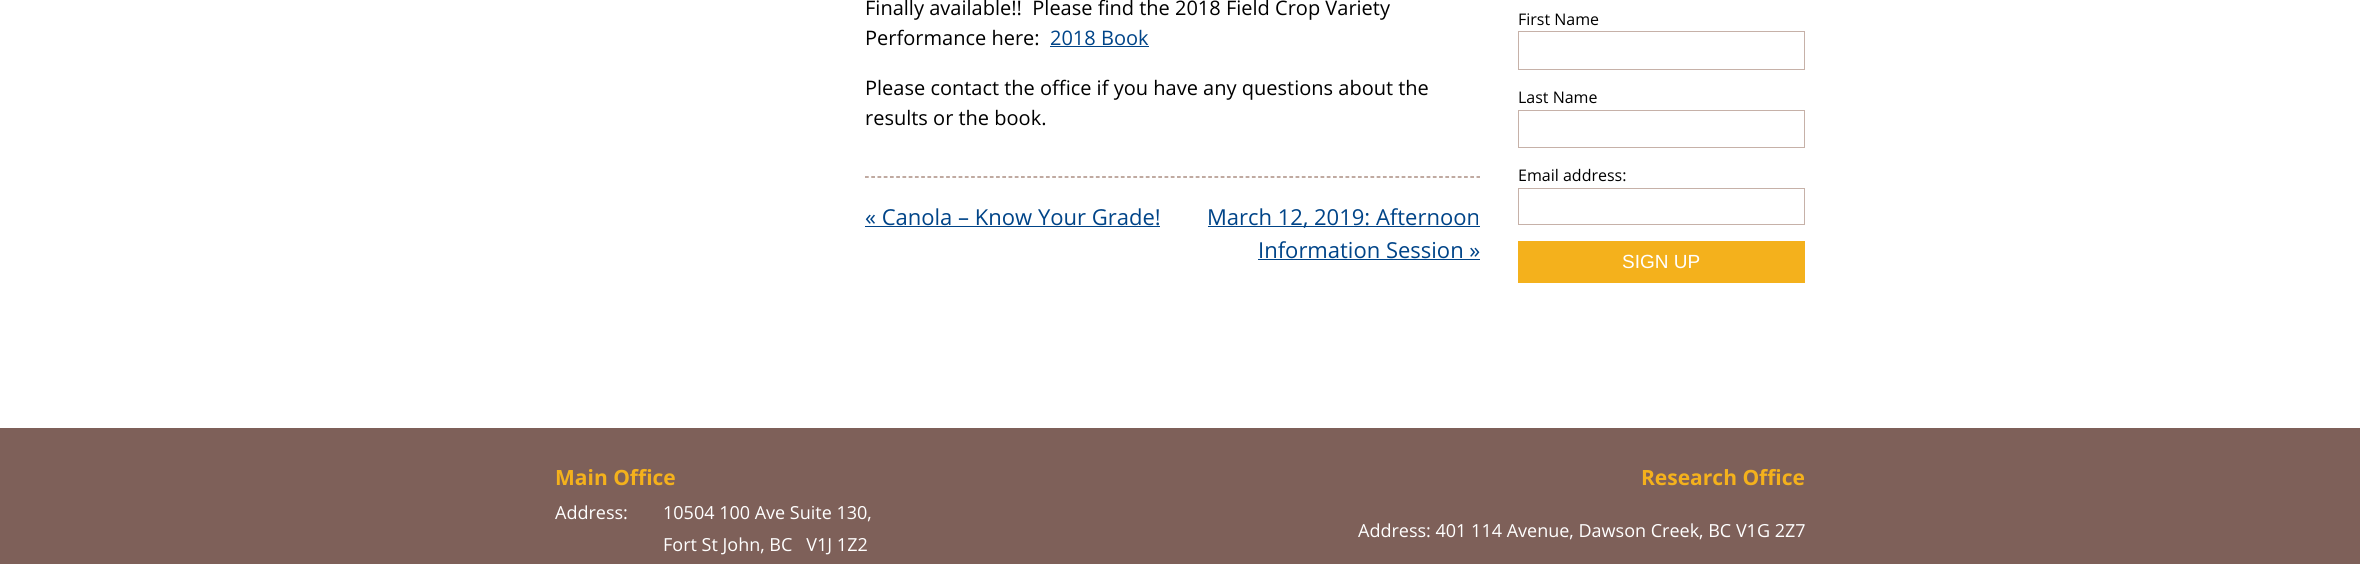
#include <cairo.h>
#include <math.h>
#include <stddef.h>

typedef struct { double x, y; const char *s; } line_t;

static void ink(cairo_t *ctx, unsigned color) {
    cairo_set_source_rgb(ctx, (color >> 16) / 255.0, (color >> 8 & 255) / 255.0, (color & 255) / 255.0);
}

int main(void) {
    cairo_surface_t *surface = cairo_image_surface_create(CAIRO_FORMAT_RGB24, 2360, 564);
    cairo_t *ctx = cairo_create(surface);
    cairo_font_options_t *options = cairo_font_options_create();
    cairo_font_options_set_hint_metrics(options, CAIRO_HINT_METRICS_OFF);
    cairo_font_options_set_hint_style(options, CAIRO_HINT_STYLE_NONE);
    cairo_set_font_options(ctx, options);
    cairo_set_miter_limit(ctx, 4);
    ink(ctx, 0xFFFFFF);
    cairo_paint(ctx);
    cairo_select_font_face(ctx, "Open Sans", CAIRO_FONT_SLANT_NORMAL, CAIRO_FONT_WEIGHT_NORMAL);
    cairo_set_font_size(ctx, 20);
    ink(ctx, 0x000000);
    cairo_move_to(ctx, 865, 15);
    cairo_show_text(ctx, "Finally available!!  Please find the 2018 Field Crop Variety");
    cairo_move_to(ctx, 865, 45);
    cairo_show_text(ctx, "Performance here:");
    ink(ctx, 0x004488);
    cairo_move_to(ctx, 1050, 45);
    cairo_show_text(ctx, "2018 Book");
    cairo_rectangle(ctx, 1050, 46, 99, 1);
    cairo_fill(ctx);
    ink(ctx, 0x000000);
    cairo_move_to(ctx, 865, 95);
    cairo_show_text(ctx, "Please contact the office if you have any questions about the");
    cairo_move_to(ctx, 865, 125);
    cairo_show_text(ctx, "results or the book.");
    cairo_new_path(ctx);
    cairo_move_to(ctx, 865, 177);
    cairo_line_to(ctx, 1480, 177);
    ink(ctx, 0x967364);
    cairo_set_line_width(ctx, 1.2);
    cairo_set_dash(ctx, (double[]){3.75, 2.49}, 2, 0);
    cairo_stroke(ctx);
    cairo_set_font_size(ctx, 22);
    ink(ctx, 0x004488);
    cairo_move_to(ctx, 865, 225);
    cairo_show_text(ctx, "« Canola – Know Your Grade!");
    cairo_rectangle(ctx, 865, 226, 295, 1);
    cairo_fill(ctx);
    cairo_rectangle(ctx, 1208, 226, 272, 1);
    cairo_fill(ctx);
    cairo_move_to(ctx, 1207, 225);
    cairo_show_text(ctx, "March 12, 2019: Afternoon");
    cairo_move_to(ctx, 1258, 258);
    cairo_show_text(ctx, "Information Session »");
    cairo_rectangle(ctx, 1258, 259, 222, 1);
    cairo_fill(ctx);
    cairo_set_font_size(ctx, 16);
    ink(ctx, 0x000000);
    cairo_move_to(ctx, 1518, 25);
    cairo_show_text(ctx, "First Name");
    cairo_rectangle(ctx, 1518.5, 31.5, 286, 38);
    ink(ctx, 0xC6B1A8);
    cairo_set_line_width(ctx, 1);
    cairo_set_dash(ctx, NULL, 0, 0);
    cairo_stroke(ctx);
    ink(ctx, 0x000000);
    cairo_move_to(ctx, 1518, 103);
    cairo_show_text(ctx, "Last Name");
    cairo_rectangle(ctx, 1518.5, 110.5, 286, 37);
    ink(ctx, 0xC6B1A8);
    cairo_stroke(ctx);
    ink(ctx, 0x000000);
    cairo_move_to(ctx, 1518, 181);
    cairo_show_text(ctx, "Email address:");
    cairo_rectangle(ctx, 1518.5, 188.5, 286, 36);
    ink(ctx, 0xC6B1A8);
    cairo_stroke(ctx);
    ink(ctx, 0xF4B11C);
    cairo_rectangle(ctx, 1518, 241, 287, 42);
    cairo_fill(ctx);
    cairo_select_font_face(ctx, "Liberation Sans", CAIRO_FONT_SLANT_NORMAL, CAIRO_FONT_WEIGHT_NORMAL);
    cairo_set_font_size(ctx, 19);
    ink(ctx, 0xFFFFFF);
    cairo_move_to(ctx, 1622, 268);
    cairo_show_text(ctx, "SIGN UP");
    ink(ctx, 0x7E6059);
    cairo_rectangle(ctx, 0, 428, 2360, 136);
    cairo_fill(ctx);
    cairo_select_font_face(ctx, "Open Sans", CAIRO_FONT_SLANT_NORMAL, CAIRO_FONT_WEIGHT_BOLD);
    cairo_set_font_size(ctx, 21);
    ink(ctx, 0xF4B11C);
    cairo_move_to(ctx, 555, 485);
    cairo_show_text(ctx, "Main Office");
    cairo_select_font_face(ctx, "Open Sans", CAIRO_FONT_SLANT_NORMAL, CAIRO_FONT_WEIGHT_NORMAL);
    cairo_set_font_size(ctx, 18);
    ink(ctx, 0xFFFFFF);
    {
        static const line_t items[] = {
            {555, 519, "Address:"},
            {663, 519, "10504 100 Ave Suite 130,"},
            {663, 551, "Fort St John, BC   V1J 1Z2"},
        };
        for (size_t i = 0; i < sizeof items / sizeof *items; i++) {
            cairo_move_to(ctx, items[i].x, items[i].y);
            cairo_show_text(ctx, items[i].s);
        }
    }
    cairo_select_font_face(ctx, "Open Sans", CAIRO_FONT_SLANT_NORMAL, CAIRO_FONT_WEIGHT_BOLD);
    cairo_set_font_size(ctx, 21);
    ink(ctx, 0xF4B11C);
    cairo_move_to(ctx, 1641, 485);
    cairo_show_text(ctx, "Research Office");
    cairo_select_font_face(ctx, "Open Sans", CAIRO_FONT_SLANT_NORMAL, CAIRO_FONT_WEIGHT_NORMAL);
    cairo_set_font_size(ctx, 18);
    ink(ctx, 0xFFFFFF);
    cairo_move_to(ctx, 1358, 537);
    cairo_show_text(ctx, "Address: 401 114 Avenue, Dawson Creek, BC V1G 2Z7");
    cairo_surface_write_to_png(surface, "image.png");
    cairo_font_options_destroy(options);
    cairo_destroy(ctx);
    cairo_surface_destroy(surface);
    return 0;
}
